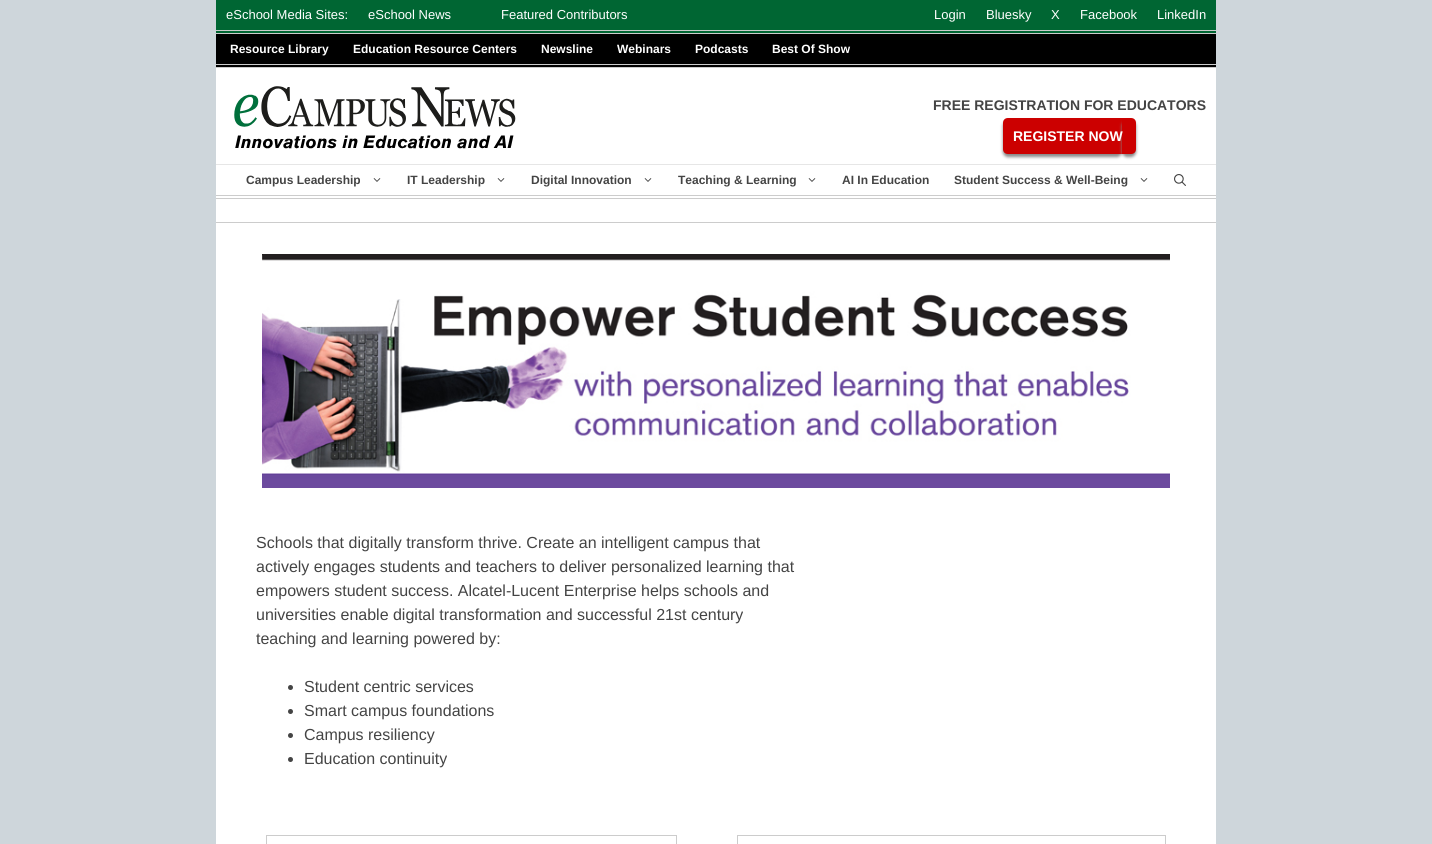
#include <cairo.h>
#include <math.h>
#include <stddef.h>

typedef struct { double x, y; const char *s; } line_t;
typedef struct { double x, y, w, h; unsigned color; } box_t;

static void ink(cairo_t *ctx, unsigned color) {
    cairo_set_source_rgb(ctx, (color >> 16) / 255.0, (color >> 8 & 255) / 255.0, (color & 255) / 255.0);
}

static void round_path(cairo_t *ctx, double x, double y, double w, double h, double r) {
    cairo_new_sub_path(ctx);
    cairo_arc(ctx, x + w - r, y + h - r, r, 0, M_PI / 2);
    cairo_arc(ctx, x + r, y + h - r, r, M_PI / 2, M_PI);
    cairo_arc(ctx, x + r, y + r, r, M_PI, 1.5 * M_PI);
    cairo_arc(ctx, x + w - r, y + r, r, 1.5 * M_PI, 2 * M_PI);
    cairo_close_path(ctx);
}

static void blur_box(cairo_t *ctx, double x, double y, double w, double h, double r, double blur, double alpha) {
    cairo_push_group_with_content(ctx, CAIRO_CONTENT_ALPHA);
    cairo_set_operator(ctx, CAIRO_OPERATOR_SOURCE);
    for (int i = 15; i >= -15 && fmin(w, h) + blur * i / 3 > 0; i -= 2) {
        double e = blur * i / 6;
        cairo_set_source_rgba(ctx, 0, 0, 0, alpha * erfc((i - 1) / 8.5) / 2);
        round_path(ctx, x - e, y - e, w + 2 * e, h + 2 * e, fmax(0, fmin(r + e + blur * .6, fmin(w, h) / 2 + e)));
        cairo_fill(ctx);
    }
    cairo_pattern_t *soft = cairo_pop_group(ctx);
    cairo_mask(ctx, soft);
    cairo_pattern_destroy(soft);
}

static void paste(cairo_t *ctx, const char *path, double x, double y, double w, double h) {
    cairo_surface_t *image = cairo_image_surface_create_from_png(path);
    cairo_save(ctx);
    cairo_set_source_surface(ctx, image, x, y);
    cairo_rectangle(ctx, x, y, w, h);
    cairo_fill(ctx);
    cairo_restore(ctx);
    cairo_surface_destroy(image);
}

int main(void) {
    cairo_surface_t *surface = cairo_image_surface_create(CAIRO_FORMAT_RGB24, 1432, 844);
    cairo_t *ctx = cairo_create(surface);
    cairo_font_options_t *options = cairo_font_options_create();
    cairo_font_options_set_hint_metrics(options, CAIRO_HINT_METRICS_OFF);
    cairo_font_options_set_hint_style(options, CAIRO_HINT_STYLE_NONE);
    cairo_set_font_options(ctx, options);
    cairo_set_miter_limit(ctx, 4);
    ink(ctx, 0xCED6DB);
    cairo_paint(ctx);
    {
        static const box_t items[] = {
            {216, 0, 1000, 33, 0x006633},
            {216, 30, 1000, 1, 0xCCCCCC},
            {216, 33, 1000, 1, 0xCCCCCC},
        };
        for (size_t i = 0; i < sizeof items / sizeof *items; i++) {
            ink(ctx, items[i].color);
            cairo_rectangle(ctx, items[i].x, items[i].y, items[i].w, items[i].h);
            cairo_fill(ctx);
        }
    }
    cairo_select_font_face(ctx, "Liberation Sans", CAIRO_FONT_SLANT_NORMAL, CAIRO_FONT_WEIGHT_NORMAL);
    cairo_set_font_size(ctx, 13);
    ink(ctx, 0xFFFFFF);
    {
        static const line_t items[] = {
            {226, 19, "eSchool Media Sites:"},
            {368, 19, "eSchool News"},
            {501, 19, "Featured Contributors"},
            {934, 19, "Login"},
            {986, 19, "Bluesky"},
            {1051, 19, "X"},
            {1080, 19, "Facebook"},
            {1157, 19, "LinkedIn"},
        };
        for (size_t i = 0; i < sizeof items / sizeof *items; i++) {
            cairo_move_to(ctx, items[i].x, items[i].y);
            cairo_show_text(ctx, items[i].s);
        }
    }
    {
        static const box_t items[] = {
            {216, 34, 1000, 33, 0x000000},
            {216, 64, 1000, 1, 0xCCCCCC},
            {216, 67, 1000, 1, 0xCCCCCC},
        };
        for (size_t i = 0; i < sizeof items / sizeof *items; i++) {
            ink(ctx, items[i].color);
            cairo_rectangle(ctx, items[i].x, items[i].y, items[i].w, items[i].h);
            cairo_fill(ctx);
        }
    }
    cairo_select_font_face(ctx, "Liberation Sans", CAIRO_FONT_SLANT_NORMAL, CAIRO_FONT_WEIGHT_BOLD);
    cairo_set_font_size(ctx, 12);
    ink(ctx, 0xFFFFFF);
    {
        static const line_t items[] = {
            {230, 53, "Resource Library"},
            {353, 53, "Education Resource Centers"},
            {541, 53, "Newsline"},
            {617, 53, "Webinars"},
            {695, 53, "Podcasts"},
            {772, 53, "Best Of Show"},
        };
        for (size_t i = 0; i < sizeof items / sizeof *items; i++) {
            cairo_move_to(ctx, items[i].x, items[i].y);
            cairo_show_text(ctx, items[i].s);
        }
    }
    cairo_rectangle(ctx, 216, 68, 1000, 96);
    cairo_fill(ctx);
    ink(ctx, 0xE6E6E6);
    cairo_rectangle(ctx, 216, 164, 1000, 1);
    cairo_fill(ctx);
    paste(ctx, "media/1.png", 234, 86, 282, 63);
    cairo_set_font_size(ctx, 14);
    ink(ctx, 0x444444);
    cairo_move_to(ctx, 933, 110);
    cairo_show_text(ctx, "FREE REGISTRATION FOR EDUCATORS");
    ink(ctx, 0x888888);
    blur_box(ctx, 1003, 121, 119, 36, 5, 1.5, 1);
    ink(ctx, 0xCC0000);
    cairo_new_path(ctx);
    cairo_move_to(ctx, 1008, 118);
    cairo_line_to(ctx, 1122, 118);
    cairo_line_to(ctx, 1122, 154);
    cairo_line_to(ctx, 1008, 154);
    cairo_curve_to(ctx, 1005, 154, 1003, 152, 1003, 149);
    cairo_line_to(ctx, 1003, 123);
    cairo_curve_to(ctx, 1003, 120, 1005, 118, 1008, 118);
    cairo_close_path(ctx);
    cairo_fill(ctx);
    ink(ctx, 0x888888);
    blur_box(ctx, 1122, 121, 14, 36, 5, 1.5, 1);
    ink(ctx, 0xCC0000);
    cairo_new_path(ctx);
    cairo_move_to(ctx, 1122, 118);
    cairo_line_to(ctx, 1131, 118);
    cairo_curve_to(ctx, 1134, 118, 1136, 120, 1136, 123);
    cairo_line_to(ctx, 1136, 149);
    cairo_curve_to(ctx, 1136, 152, 1134, 154, 1131, 154);
    cairo_line_to(ctx, 1122, 154);
    cairo_close_path(ctx);
    cairo_fill(ctx);
    ink(ctx, 0xFFFFFF);
    cairo_move_to(ctx, 1013, 141);
    cairo_show_text(ctx, "REGISTER NOW");
    {
        static const box_t items[] = {
            {216, 165, 1000, 33, 0xFFFFFF},
            {216, 195, 1000, 1, 0xCCCCCC},
            {216, 198, 1000, 1, 0xCCCCCC},
        };
        for (size_t i = 0; i < sizeof items / sizeof *items; i++) {
            ink(ctx, items[i].color);
            cairo_rectangle(ctx, items[i].x, items[i].y, items[i].w, items[i].h);
            cairo_fill(ctx);
        }
    }
    cairo_set_font_size(ctx, 12);
    ink(ctx, 0x444444);
    cairo_move_to(ctx, 246, 184);
    cairo_show_text(ctx, "Campus Leadership");
    paste(ctx, "media/2.png", 373, 178, 8, 4);
    cairo_move_to(ctx, 407, 184);
    cairo_show_text(ctx, "IT Leadership");
    paste(ctx, "media/2.png", 497, 178, 8, 4);
    cairo_move_to(ctx, 531, 184);
    cairo_show_text(ctx, "Digital Innovation");
    paste(ctx, "media/2.png", 644, 178, 8, 4);
    cairo_move_to(ctx, 678, 184);
    cairo_show_text(ctx, "Teaching & Learning");
    paste(ctx, "media/2.png", 808, 178, 8, 4);
    cairo_move_to(ctx, 842, 184);
    cairo_show_text(ctx, "AI In Education");
    cairo_move_to(ctx, 954, 184);
    cairo_show_text(ctx, "Student Success & Well-Being");
    paste(ctx, "media/2.png", 1140, 178, 8, 4);
    paste(ctx, "media/3.png", 1174, 174, 12, 12);
    {
        static const box_t items[] = {
            {216, 199, 1000, 23, 0xFFFFFF},
            {216, 222, 1000, 1, 0xCCCCCC},
            {216, 223, 1000, 621, 0xFFFFFF},
        };
        for (size_t i = 0; i < sizeof items / sizeof *items; i++) {
            ink(ctx, items[i].color);
            cairo_rectangle(ctx, items[i].x, items[i].y, items[i].w, items[i].h);
            cairo_fill(ctx);
        }
    }
    paste(ctx, "media/4.png", 262, 254, 908, 234);
    cairo_select_font_face(ctx, "Liberation Sans", CAIRO_FONT_SLANT_NORMAL, CAIRO_FONT_WEIGHT_NORMAL);
    cairo_set_font_size(ctx, 16);
    ink(ctx, 0x444444);
    {
        static const line_t items[] = {
            {256, 548, "Schools that digitally transform thrive. Create an intelligent campus that"},
            {256, 572, "actively engages students and teachers to deliver personalized learning that"},
            {256, 596, "empowers student success. Alcatel-Lucent Enterprise helps schools and"},
            {256, 620, "universities enable digital transformation and successful 21st century"},
            {256, 644, "teaching and learning powered by:"},
        };
        for (size_t i = 0; i < sizeof items / sizeof *items; i++) {
            cairo_move_to(ctx, items[i].x, items[i].y);
            cairo_show_text(ctx, items[i].s);
        }
    }
    cairo_new_path(ctx);
    cairo_arc(ctx, 290.5, 687.5, 2.5, 0, 2 * M_PI);
    cairo_fill(ctx);
    cairo_move_to(ctx, 304, 692);
    cairo_show_text(ctx, "Student centric services");
    cairo_new_path(ctx);
    cairo_arc(ctx, 290.5, 711.5, 2.5, 0, 2 * M_PI);
    cairo_fill(ctx);
    cairo_move_to(ctx, 304, 716);
    cairo_show_text(ctx, "Smart campus foundations");
    cairo_new_path(ctx);
    cairo_arc(ctx, 290.5, 735.5, 2.5, 0, 2 * M_PI);
    cairo_fill(ctx);
    cairo_move_to(ctx, 304, 740);
    cairo_show_text(ctx, "Campus resiliency");
    cairo_new_path(ctx);
    cairo_arc(ctx, 290.5, 759.5, 2.5, 0, 2 * M_PI);
    cairo_fill(ctx);
    cairo_move_to(ctx, 304, 764);
    cairo_show_text(ctx, "Education continuity");
    cairo_rectangle(ctx, 266.5, 835.5, 410, 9);
    ink(ctx, 0xCCCCCC);
    cairo_set_line_width(ctx, 1);
    cairo_stroke(ctx);
    cairo_rectangle(ctx, 737.5, 835.5, 428, 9);
    cairo_stroke(ctx);
    cairo_surface_write_to_png(surface, "image.png");
    cairo_font_options_destroy(options);
    cairo_destroy(ctx);
    cairo_surface_destroy(surface);
    return 0;
}
